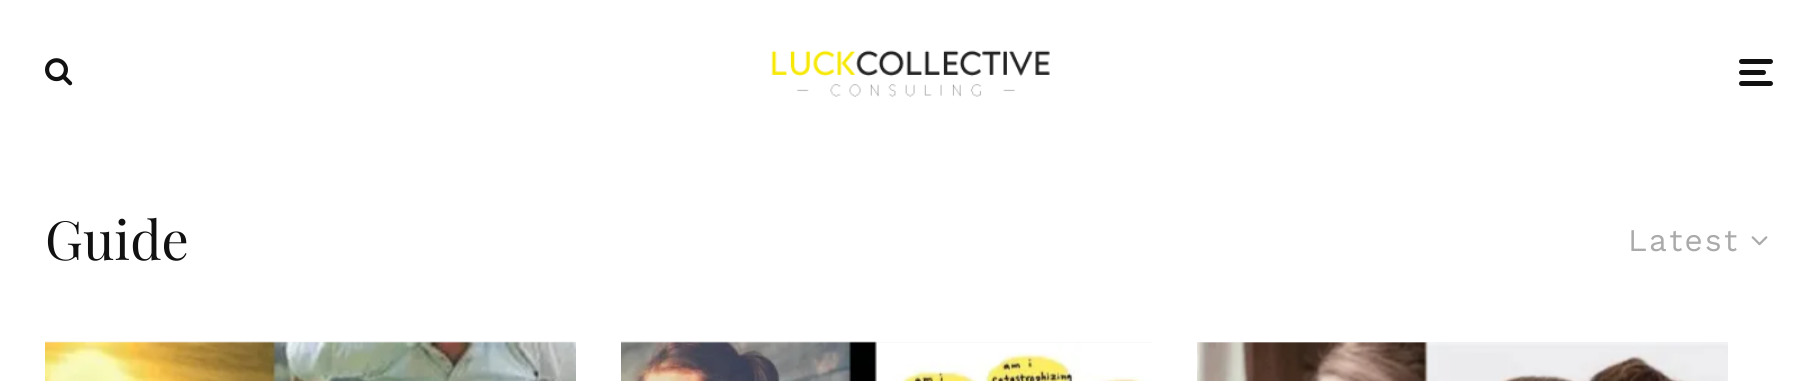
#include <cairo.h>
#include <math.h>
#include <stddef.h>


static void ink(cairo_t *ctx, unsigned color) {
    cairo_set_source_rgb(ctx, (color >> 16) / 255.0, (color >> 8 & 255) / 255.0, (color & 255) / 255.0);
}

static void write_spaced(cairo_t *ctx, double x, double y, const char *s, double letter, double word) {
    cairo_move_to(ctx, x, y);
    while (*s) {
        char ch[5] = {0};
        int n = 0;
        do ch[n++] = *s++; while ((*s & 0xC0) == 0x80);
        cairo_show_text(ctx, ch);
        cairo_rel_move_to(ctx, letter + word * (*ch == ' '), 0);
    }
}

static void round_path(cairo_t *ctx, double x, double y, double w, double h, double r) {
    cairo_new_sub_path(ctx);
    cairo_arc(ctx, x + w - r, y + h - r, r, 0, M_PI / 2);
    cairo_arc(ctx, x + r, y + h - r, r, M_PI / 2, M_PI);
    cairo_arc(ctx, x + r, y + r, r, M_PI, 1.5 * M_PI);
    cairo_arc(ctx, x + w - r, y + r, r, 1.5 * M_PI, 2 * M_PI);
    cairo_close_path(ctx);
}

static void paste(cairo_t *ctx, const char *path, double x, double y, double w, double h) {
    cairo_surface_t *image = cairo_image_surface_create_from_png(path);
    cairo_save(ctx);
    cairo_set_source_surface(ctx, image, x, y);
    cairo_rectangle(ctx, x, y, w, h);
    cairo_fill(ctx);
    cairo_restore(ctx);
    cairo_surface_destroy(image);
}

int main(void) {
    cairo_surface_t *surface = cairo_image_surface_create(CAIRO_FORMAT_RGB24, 1818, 381);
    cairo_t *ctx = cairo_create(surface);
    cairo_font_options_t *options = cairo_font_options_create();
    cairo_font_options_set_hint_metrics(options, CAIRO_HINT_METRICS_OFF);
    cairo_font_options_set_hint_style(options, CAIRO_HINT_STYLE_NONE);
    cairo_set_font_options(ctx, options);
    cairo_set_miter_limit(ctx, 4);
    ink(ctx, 0xFFFFFF);
    cairo_paint(ctx);
    paste(ctx, "media/1.png", 45, 58, 28, 28);
    paste(ctx, "media/2.png", 771, 50, 279, 47);
    ink(ctx, 0x111111);
    round_path(ctx, 1739, 70, 27, 5, 2.5);
    cairo_fill(ctx);
    round_path(ctx, 1739, 59, 34, 5, 2.5);
    cairo_fill(ctx);
    round_path(ctx, 1739, 81, 34, 5, 2.5);
    cairo_fill(ctx);
    cairo_select_font_face(ctx, "Playfair Display", CAIRO_FONT_SLANT_NORMAL, CAIRO_FONT_WEIGHT_NORMAL);
    cairo_set_font_size(ctx, 54);
    cairo_move_to(ctx, 45, 260);
    cairo_show_text(ctx, "Guide");
    cairo_select_font_face(ctx, "Work Sans", CAIRO_FONT_SLANT_NORMAL, CAIRO_FONT_WEIGHT_NORMAL);
    cairo_set_font_size(ctx, 31.5);
    ink(ctx, 0xAAAAAA);
    write_spaced(ctx, 1628, 251, "Latest", 2.25, 0);
    paste(ctx, "media/3.png", 1751, 236, 17, 10);
    ink(ctx, 0xEEEEEE);
    cairo_rectangle(ctx, 45, 342, 531, 1);
    cairo_fill(ctx);
    paste(ctx, "media/4.png", 45, 341, 531, 40);
    cairo_rectangle(ctx, 621, 342, 531, 1);
    cairo_fill(ctx);
    paste(ctx, "media/5.png", 621, 341, 531, 40);
    cairo_rectangle(ctx, 1197, 342, 531, 39);
    cairo_fill(ctx);
    paste(ctx, "media/6.png", 1197, 342, 531, 39);
    cairo_surface_write_to_png(surface, "image.png");
    cairo_font_options_destroy(options);
    cairo_destroy(ctx);
    cairo_surface_destroy(surface);
    return 0;
}
